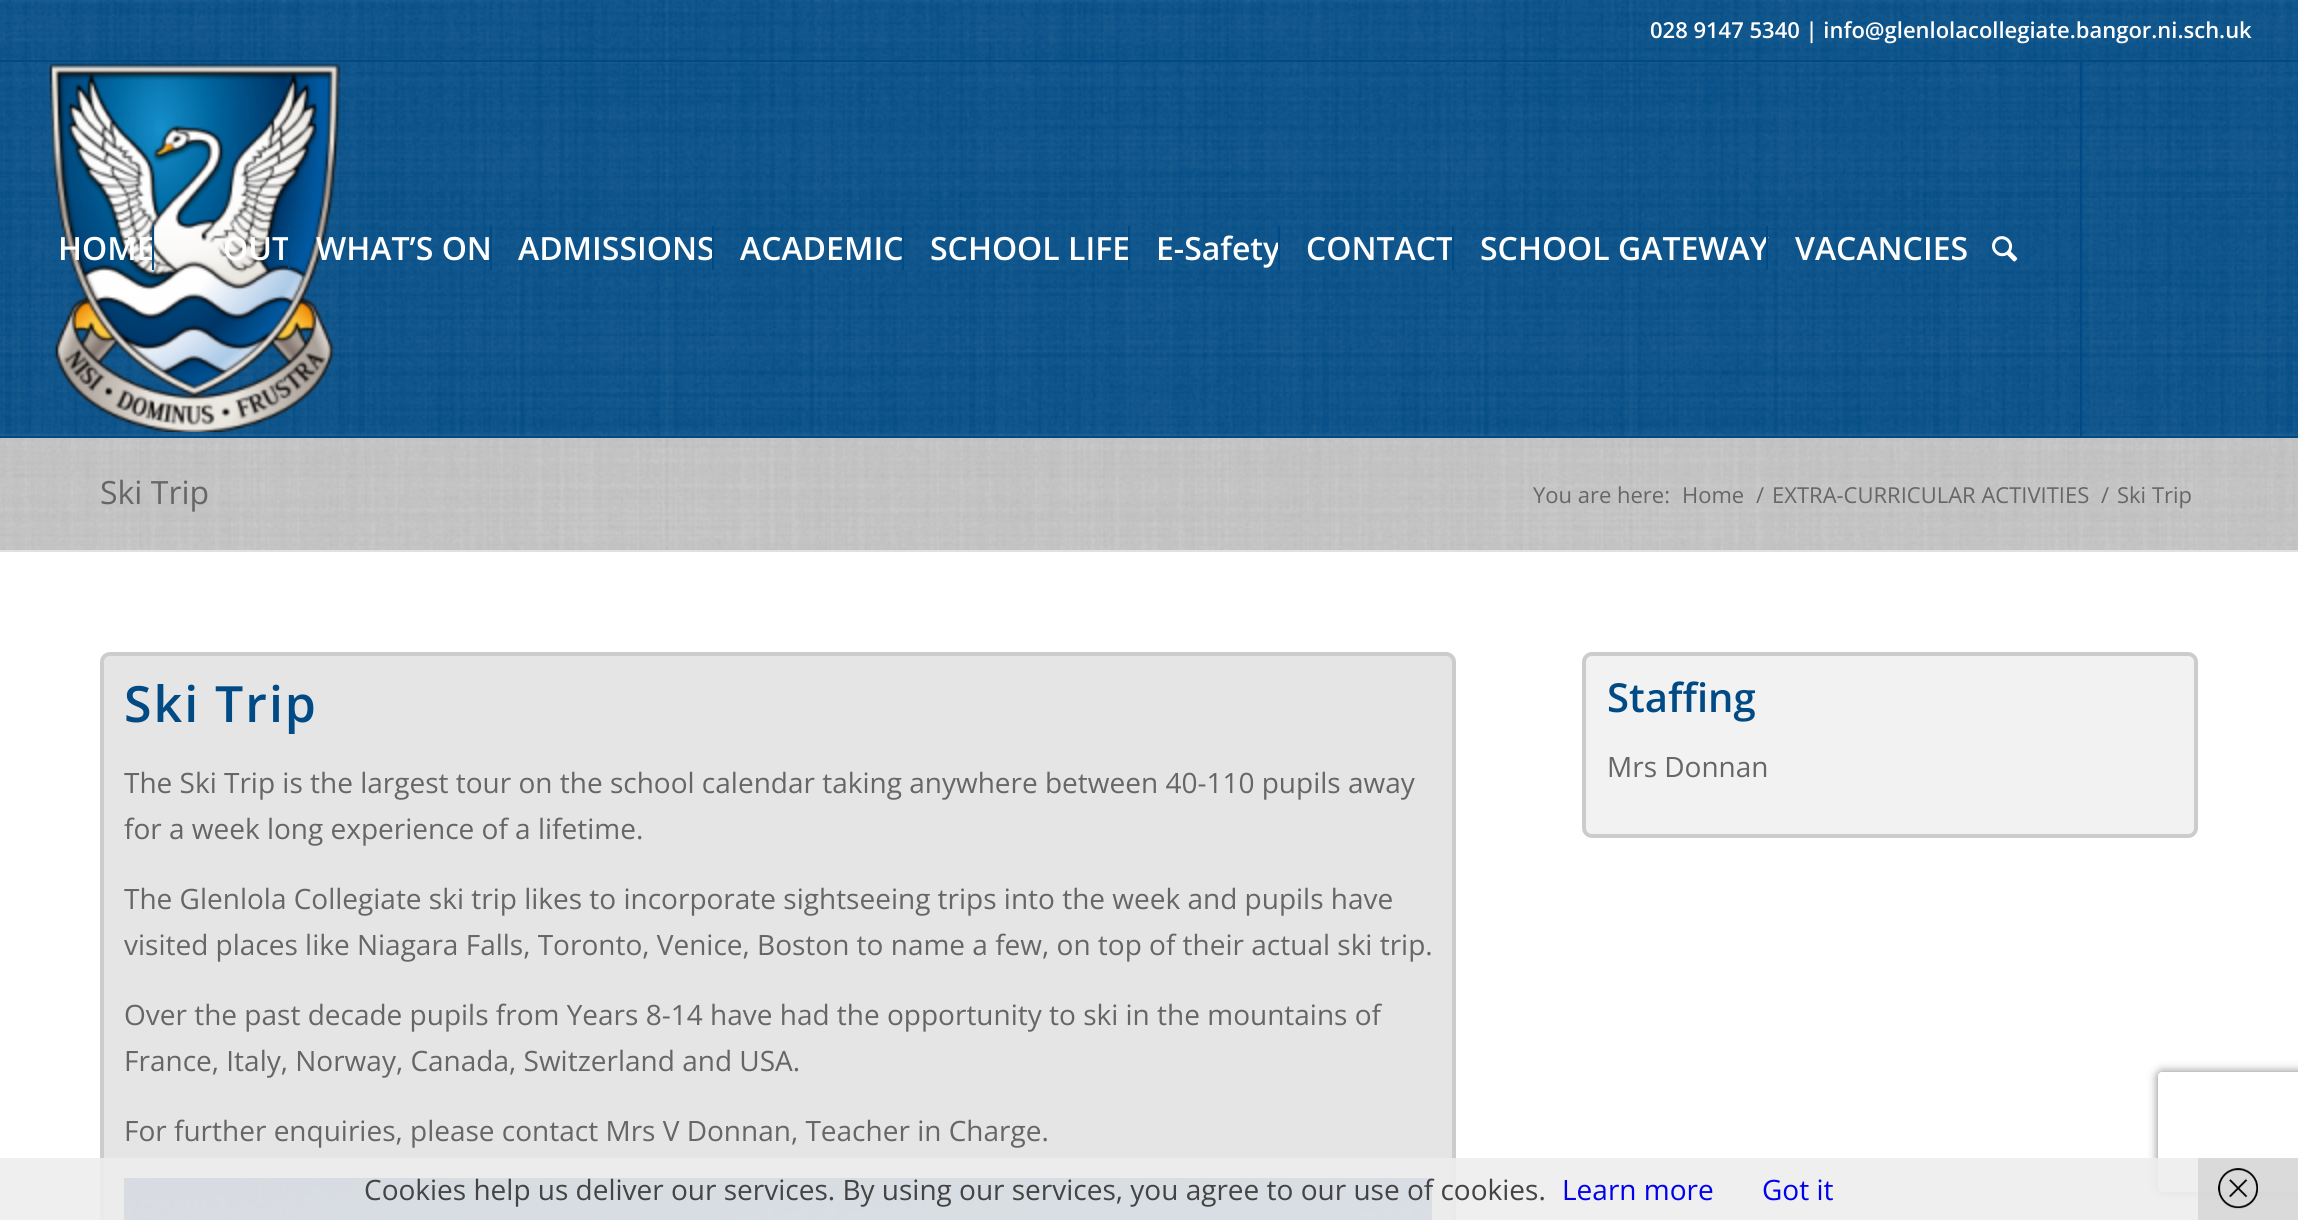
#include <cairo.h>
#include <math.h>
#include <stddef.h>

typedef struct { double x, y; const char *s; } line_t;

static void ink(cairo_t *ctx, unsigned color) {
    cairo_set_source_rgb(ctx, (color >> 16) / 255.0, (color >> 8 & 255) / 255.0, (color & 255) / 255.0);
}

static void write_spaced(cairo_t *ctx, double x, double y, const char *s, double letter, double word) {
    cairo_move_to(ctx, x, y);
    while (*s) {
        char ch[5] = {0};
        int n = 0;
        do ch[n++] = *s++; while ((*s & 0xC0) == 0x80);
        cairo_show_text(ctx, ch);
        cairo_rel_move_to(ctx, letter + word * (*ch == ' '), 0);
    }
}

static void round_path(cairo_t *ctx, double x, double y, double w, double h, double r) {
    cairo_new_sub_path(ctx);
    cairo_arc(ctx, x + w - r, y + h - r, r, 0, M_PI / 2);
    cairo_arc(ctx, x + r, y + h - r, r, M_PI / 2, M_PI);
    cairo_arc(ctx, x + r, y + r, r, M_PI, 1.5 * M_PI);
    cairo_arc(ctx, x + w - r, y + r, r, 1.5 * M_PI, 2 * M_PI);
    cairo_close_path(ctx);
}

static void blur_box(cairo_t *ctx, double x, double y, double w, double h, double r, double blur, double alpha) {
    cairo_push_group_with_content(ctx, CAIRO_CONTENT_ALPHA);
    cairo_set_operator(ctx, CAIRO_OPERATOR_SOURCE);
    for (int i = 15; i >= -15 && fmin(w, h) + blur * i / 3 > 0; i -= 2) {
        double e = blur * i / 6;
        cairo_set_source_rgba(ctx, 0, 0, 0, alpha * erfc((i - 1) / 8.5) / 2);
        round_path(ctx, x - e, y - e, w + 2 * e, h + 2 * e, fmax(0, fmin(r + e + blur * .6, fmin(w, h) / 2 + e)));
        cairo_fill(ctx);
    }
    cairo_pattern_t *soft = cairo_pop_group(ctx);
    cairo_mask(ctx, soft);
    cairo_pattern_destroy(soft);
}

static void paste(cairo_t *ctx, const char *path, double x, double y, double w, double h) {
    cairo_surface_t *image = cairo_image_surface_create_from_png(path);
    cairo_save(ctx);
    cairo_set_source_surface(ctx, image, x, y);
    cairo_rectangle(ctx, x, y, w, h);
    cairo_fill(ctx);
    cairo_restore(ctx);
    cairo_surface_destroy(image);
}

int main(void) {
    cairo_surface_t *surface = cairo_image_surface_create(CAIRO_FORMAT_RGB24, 2298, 1220);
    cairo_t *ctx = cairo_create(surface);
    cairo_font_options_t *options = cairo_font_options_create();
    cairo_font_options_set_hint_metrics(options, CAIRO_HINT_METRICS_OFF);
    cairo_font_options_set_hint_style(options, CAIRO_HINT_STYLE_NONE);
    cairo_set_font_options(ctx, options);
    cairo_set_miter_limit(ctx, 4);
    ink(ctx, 0x004B85);
    cairo_paint(ctx);
    ink(ctx, 0xE1E1E1);
    cairo_rectangle(ctx, 0, 434, 2298, 2);
    cairo_fill(ctx);
    cairo_set_source_rgba(ctx, 0, 0.294, 0.522, 0.95);
    cairo_rectangle(ctx, 0, 434, 2298, 2);
    cairo_fill(ctx);
    paste(ctx, "media/1.png", 0, 0, 2298, 436);
    cairo_select_font_face(ctx, "Open Sans SemiBold", CAIRO_FONT_SLANT_NORMAL, CAIRO_FONT_WEIGHT_NORMAL);
    cairo_set_font_size(ctx, 22);
    ink(ctx, 0xFFFFFF);
    cairo_move_to(ctx, 1650, 38);
    cairo_show_text(ctx, "028 9147 5340 | info@glenlolacollegiate.bangor.ni.sch.uk");
    ink(ctx, 0x004B85);
    cairo_rectangle(ctx, 0, 60, 2298, 2);
    cairo_fill(ctx);
    paste(ctx, "media/2.png", 48, 63, 293, 369);
    cairo_rectangle(ctx, 2080, 62, 2, 374);
    cairo_fill(ctx);
    cairo_set_font_size(ctx, 32);
    ink(ctx, 0xFFFFFF);
    cairo_move_to(ctx, 58, 260);
    cairo_show_text(ctx, "HOME");
    cairo_move_to(ctx, 223, 260);
    cairo_show_text(ctx, "OUT");
    ink(ctx, 0x004B85);
    cairo_rectangle(ctx, 152, 226, 2, 44);
    cairo_fill(ctx);
    ink(ctx, 0xFFFFFF);
    cairo_move_to(ctx, 316, 260);
    cairo_show_text(ctx, "WHAT’S ON");
    ink(ctx, 0x004B85);
    cairo_rectangle(ctx, 288, 226, 2, 44);
    cairo_fill(ctx);
    ink(ctx, 0xFFFFFF);
    cairo_move_to(ctx, 518, 260);
    cairo_show_text(ctx, "ADMISSIONS");
    ink(ctx, 0x004B85);
    cairo_rectangle(ctx, 490, 226, 2, 44);
    cairo_fill(ctx);
    ink(ctx, 0xFFFFFF);
    cairo_move_to(ctx, 740, 260);
    cairo_show_text(ctx, "ACADEMIC");
    ink(ctx, 0x004B85);
    cairo_rectangle(ctx, 712, 226, 2, 44);
    cairo_fill(ctx);
    ink(ctx, 0xFFFFFF);
    cairo_move_to(ctx, 930, 260);
    cairo_show_text(ctx, "SCHOOL LIFE");
    ink(ctx, 0x004B85);
    cairo_rectangle(ctx, 902, 226, 2, 44);
    cairo_fill(ctx);
    ink(ctx, 0xFFFFFF);
    cairo_move_to(ctx, 1156, 260);
    cairo_show_text(ctx, "E-Safety");
    ink(ctx, 0x004B85);
    cairo_rectangle(ctx, 1128, 226, 2, 44);
    cairo_fill(ctx);
    ink(ctx, 0xFFFFFF);
    cairo_move_to(ctx, 1306, 260);
    cairo_show_text(ctx, "CONTACT");
    ink(ctx, 0x004B85);
    cairo_rectangle(ctx, 1278, 226, 2, 44);
    cairo_fill(ctx);
    ink(ctx, 0xFFFFFF);
    cairo_move_to(ctx, 1480, 260);
    cairo_show_text(ctx, "SCHOOL GATEWAY");
    ink(ctx, 0x004B85);
    cairo_rectangle(ctx, 1452, 226, 2, 44);
    cairo_fill(ctx);
    ink(ctx, 0xFFFFFF);
    cairo_move_to(ctx, 1795, 260);
    cairo_show_text(ctx, "VACANCIES");
    ink(ctx, 0x004B85);
    cairo_rectangle(ctx, 1766, 226, 2, 44);
    cairo_fill(ctx);
    paste(ctx, "media/3.png", 1992, 236, 26, 26);
    ink(ctx, 0xCCCCCC);
    cairo_rectangle(ctx, 0, 438, 2298, 112);
    cairo_fill(ctx);
    paste(ctx, "media/4.png", 0, 438, 2298, 112);
    cairo_select_font_face(ctx, "Open Sans", CAIRO_FONT_SLANT_NORMAL, CAIRO_FONT_WEIGHT_NORMAL);
    ink(ctx, 0x666666);
    cairo_move_to(ctx, 100, 504);
    cairo_show_text(ctx, "Ski Trip");
    cairo_set_font_size(ctx, 22);
    {
        static const line_t items[] = {
            {1533, 503, "You are here:"},
            {1682, 503, "Home"},
            {1756, 503, "/"},
            {1772, 503, "EXTRA-CURRICULAR ACTIVITIES"},
            {2101, 503, "/"},
            {2117, 503, "Ski Trip"},
        };
        for (size_t i = 0; i < sizeof items / sizeof *items; i++) {
            cairo_move_to(ctx, items[i].x, items[i].y);
            cairo_show_text(ctx, items[i].s);
        }
    }
    ink(ctx, 0xFFFFFF);
    cairo_rectangle(ctx, 0, 552, 2298, 668);
    cairo_fill(ctx);
    ink(ctx, 0xE1E1E1);
    cairo_rectangle(ctx, 0, 550, 2298, 2);
    cairo_fill(ctx);
    ink(ctx, 0xE5E5E5);
    round_path(ctx, 102, 654, 1352, 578, 8);
    cairo_fill_preserve(ctx);
    ink(ctx, 0xCCCCCC);
    cairo_set_line_width(ctx, 4);
    cairo_stroke(ctx);
    cairo_select_font_face(ctx, "Open Sans SemiBold", CAIRO_FONT_SLANT_NORMAL, CAIRO_FONT_WEIGHT_NORMAL);
    cairo_set_font_size(ctx, 50);
    ink(ctx, 0x004B85);
    write_spaced(ctx, 124, 722, "Ski Trip", 2, 0);
    cairo_select_font_face(ctx, "Open Sans", CAIRO_FONT_SLANT_NORMAL, CAIRO_FONT_WEIGHT_NORMAL);
    cairo_set_font_size(ctx, 28);
    ink(ctx, 0x666666);
    {
        static const line_t items[] = {
            {124, 793, "The Ski Trip is the largest tour on the school calendar taking anywhere between 40-110 pupils away"},
            {124, 839, "for a week long experience of a lifetime."},
            {124, 909, "The Glenlola Collegiate ski trip likes to incorporate sightseeing trips into the week and pupils have"},
            {124, 955, "visited places like Niagara Falls, Toronto, Venice, Boston to name a few, on top of their actual ski trip."},
            {124, 1025, "Over the past decade pupils from Years 8-14 have had the opportunity to ski in the mountains of"},
            {124, 1071, "France, Italy, Norway, Canada, Switzerland and USA."},
            {124, 1141, "For further enquiries, please contact Mrs V Donnan, Teacher in Charge."},
        };
        for (size_t i = 0; i < sizeof items / sizeof *items; i++) {
            cairo_move_to(ctx, items[i].x, items[i].y);
            cairo_show_text(ctx, items[i].s);
        }
    }
    paste(ctx, "media/5.png", 124, 1178, 1308, 42);
    ink(ctx, 0xF2F2F2);
    round_path(ctx, 1584, 654, 612, 182, 8);
    cairo_fill_preserve(ctx);
    ink(ctx, 0xCCCCCC);
    cairo_stroke(ctx);
    cairo_select_font_face(ctx, "Open Sans SemiBold", CAIRO_FONT_SLANT_NORMAL, CAIRO_FONT_WEIGHT_NORMAL);
    cairo_set_font_size(ctx, 40);
    ink(ctx, 0x004B85);
    cairo_move_to(ctx, 1607, 712);
    cairo_show_text(ctx, "Staffing");
    cairo_select_font_face(ctx, "Open Sans", CAIRO_FONT_SLANT_NORMAL, CAIRO_FONT_WEIGHT_NORMAL);
    cairo_set_font_size(ctx, 28);
    ink(ctx, 0x666666);
    cairo_move_to(ctx, 1607, 777);
    cairo_show_text(ctx, "Mrs Donnan");
    cairo_save(ctx);
    cairo_set_fill_rule(ctx, CAIRO_FILL_RULE_EVEN_ODD);
    cairo_new_path(ctx);
    cairo_move_to(ctx, 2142, 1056);
    cairo_line_to(ctx, 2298, 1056);
    cairo_line_to(ctx, 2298, 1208);
    cairo_line_to(ctx, 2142, 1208);
    cairo_close_path(ctx);
    cairo_move_to(ctx, 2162, 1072);
    cairo_line_to(ctx, 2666, 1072);
    cairo_curve_to(ctx, 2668, 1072, 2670, 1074, 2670, 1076);
    cairo_line_to(ctx, 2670, 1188);
    cairo_curve_to(ctx, 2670, 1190, 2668, 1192, 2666, 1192);
    cairo_line_to(ctx, 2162, 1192);
    cairo_curve_to(ctx, 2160, 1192, 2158, 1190, 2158, 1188);
    cairo_line_to(ctx, 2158, 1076);
    cairo_curve_to(ctx, 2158, 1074, 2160, 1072, 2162, 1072);
    cairo_close_path(ctx);
    cairo_clip(ctx);
    ink(ctx, 0x808080);
    blur_box(ctx, 2158, 1072, 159, 120, 4, 5, 1);
    cairo_restore(ctx);
    cairo_set_source_rgba(ctx, 0.933, 0.933, 0.933, 0.9);
    cairo_rectangle(ctx, 0, 1158, 2298, 62);
    cairo_fill(ctx);
    ink(ctx, 0x444444);
    cairo_move_to(ctx, 364, 1200);
    cairo_show_text(ctx, "Cookies help us deliver our services. By using our services, you agree to our use of cookies.");
    ink(ctx, 0x0000EE);
    cairo_move_to(ctx, 1562, 1200);
    cairo_show_text(ctx, "Learn more");
    cairo_move_to(ctx, 1762, 1200);
    cairo_show_text(ctx, "Got it");
    cairo_set_source_rgba(ctx, 0.8, 0.8, 0.8, 0.6);
    cairo_rectangle(ctx, 2198, 1158, 100, 62);
    cairo_fill(ctx);
    paste(ctx, "media/6.png", 2218, 1168, 40, 41);
    cairo_surface_write_to_png(surface, "image.png");
    cairo_font_options_destroy(options);
    cairo_destroy(ctx);
    cairo_surface_destroy(surface);
    return 0;
}
